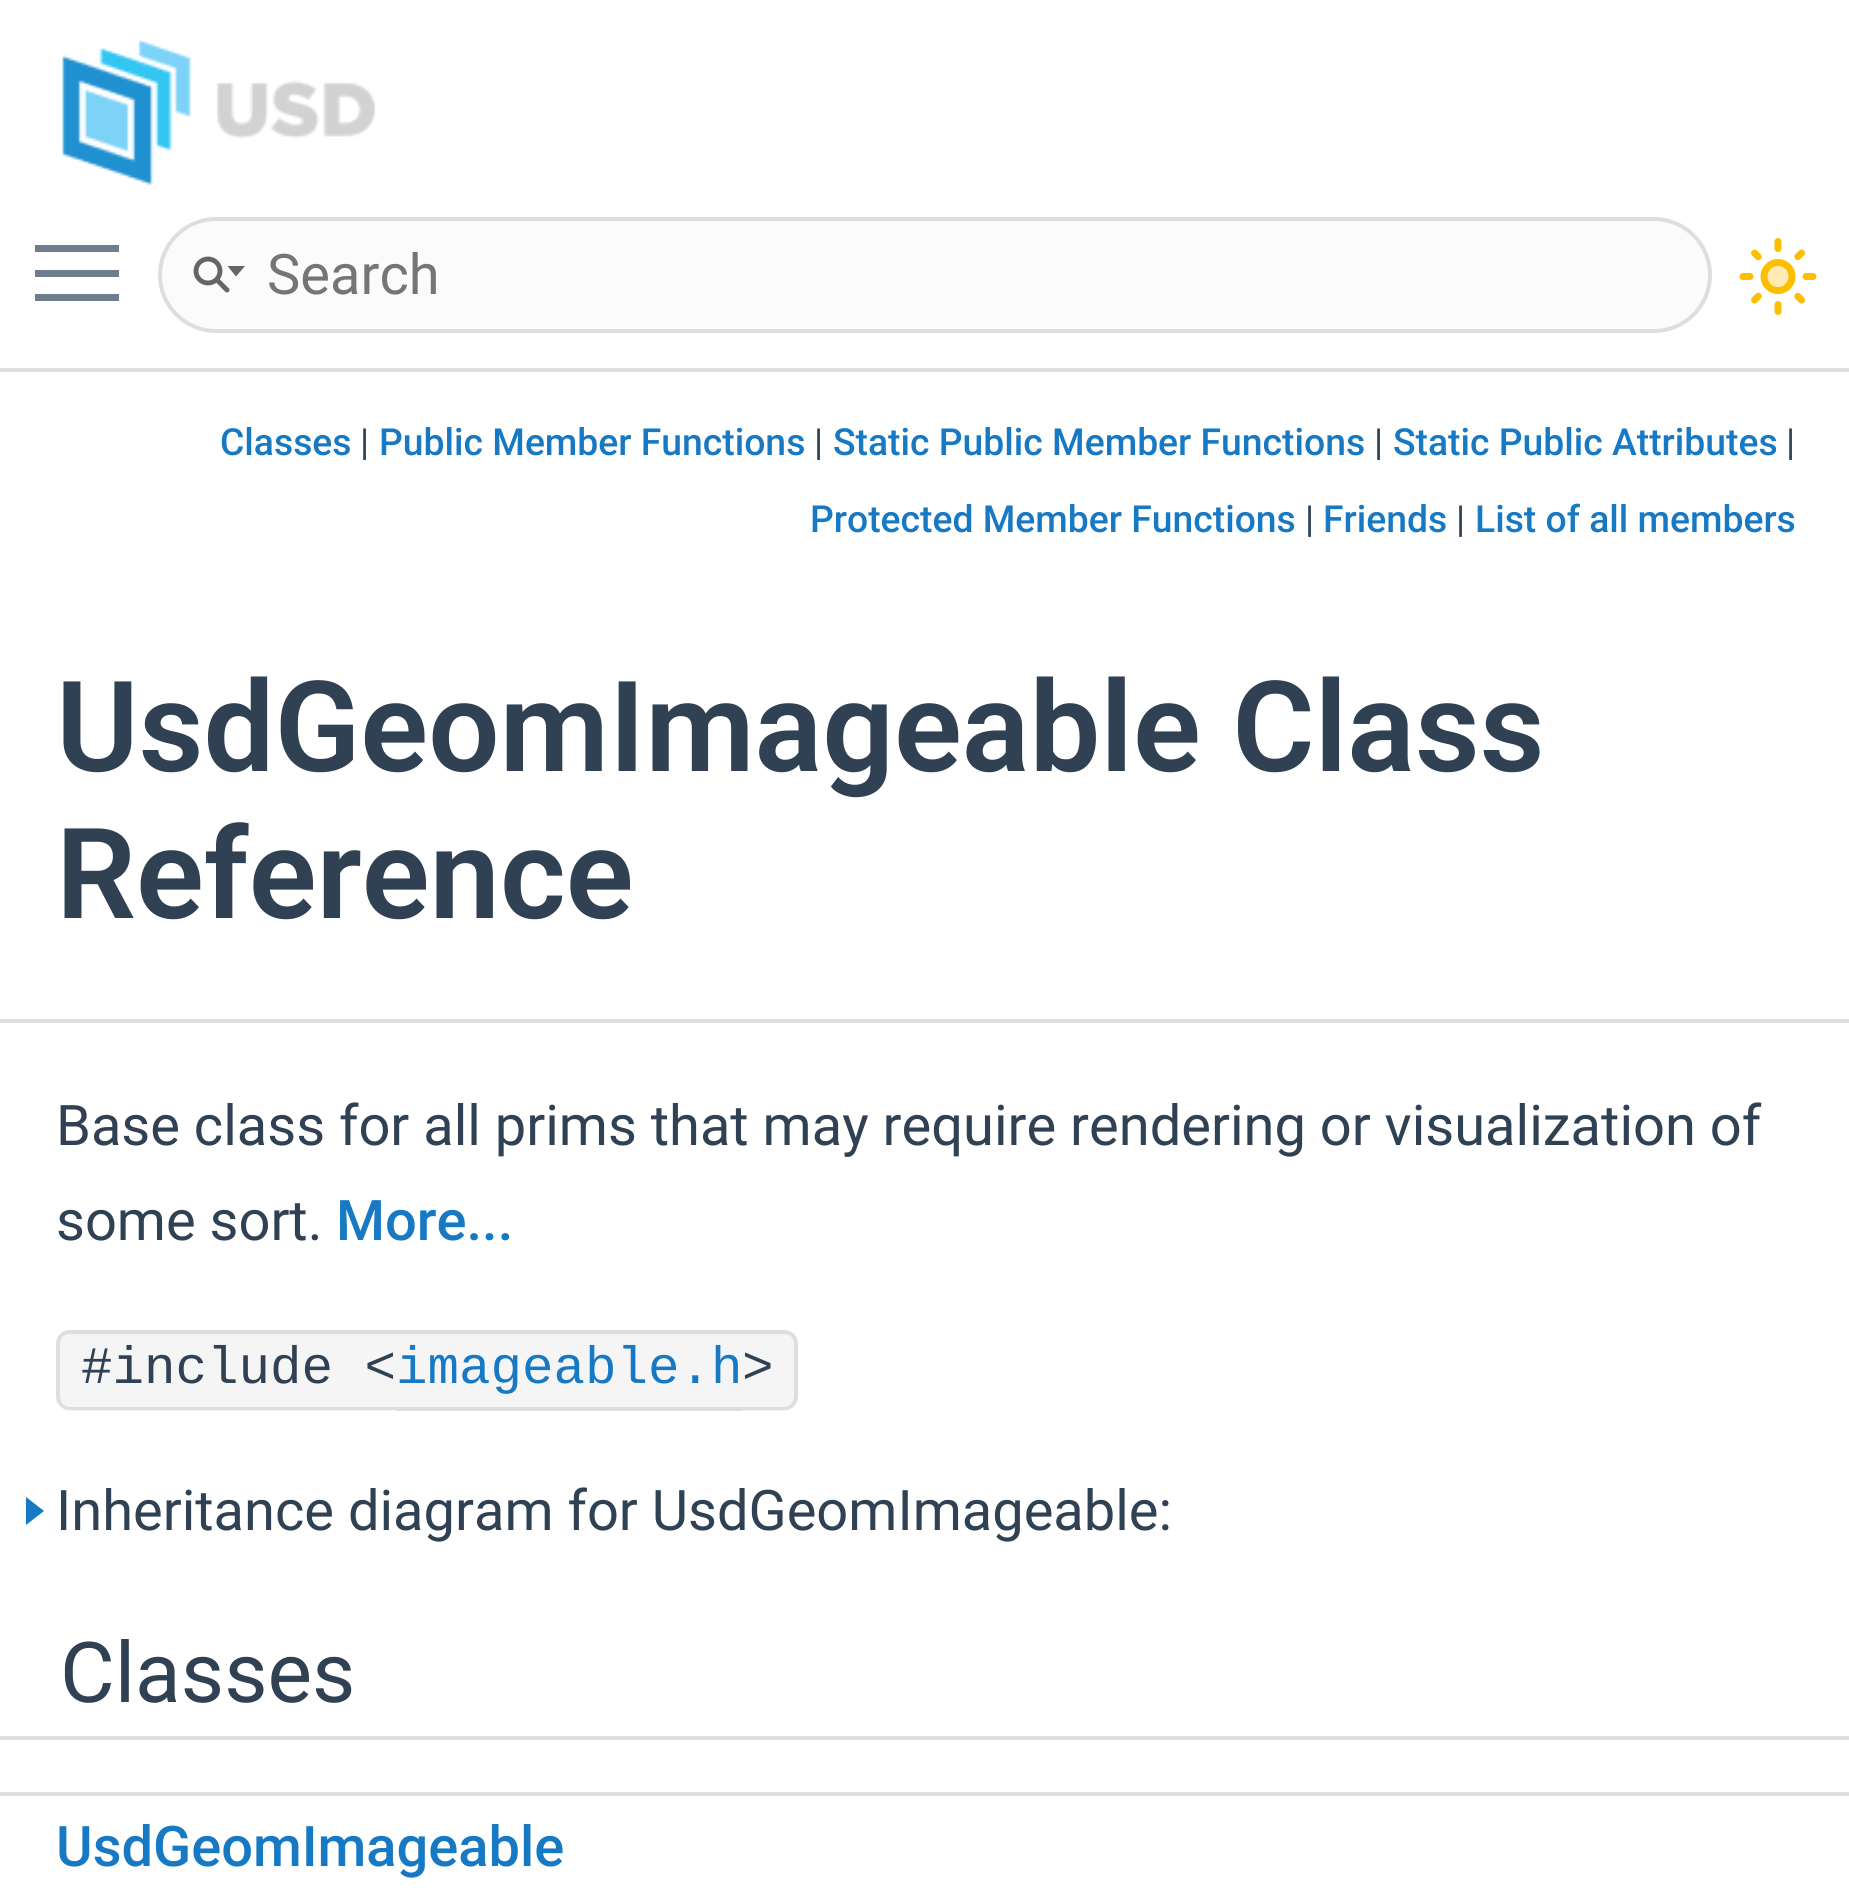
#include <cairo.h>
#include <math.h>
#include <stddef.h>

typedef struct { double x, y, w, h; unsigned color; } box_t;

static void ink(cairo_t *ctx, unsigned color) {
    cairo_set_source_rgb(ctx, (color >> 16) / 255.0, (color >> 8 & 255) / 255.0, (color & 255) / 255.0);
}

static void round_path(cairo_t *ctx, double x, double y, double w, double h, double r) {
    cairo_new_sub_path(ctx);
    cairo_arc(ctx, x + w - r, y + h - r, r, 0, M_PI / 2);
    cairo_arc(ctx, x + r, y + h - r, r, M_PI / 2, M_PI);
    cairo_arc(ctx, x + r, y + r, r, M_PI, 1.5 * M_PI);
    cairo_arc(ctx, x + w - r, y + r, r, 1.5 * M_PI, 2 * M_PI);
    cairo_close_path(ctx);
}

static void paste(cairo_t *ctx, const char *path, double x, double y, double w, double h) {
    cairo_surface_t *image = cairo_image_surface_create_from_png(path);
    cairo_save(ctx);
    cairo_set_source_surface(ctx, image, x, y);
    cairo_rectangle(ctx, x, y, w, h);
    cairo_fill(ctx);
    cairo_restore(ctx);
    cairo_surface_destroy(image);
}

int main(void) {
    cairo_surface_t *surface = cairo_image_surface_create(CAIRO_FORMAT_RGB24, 1849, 1899);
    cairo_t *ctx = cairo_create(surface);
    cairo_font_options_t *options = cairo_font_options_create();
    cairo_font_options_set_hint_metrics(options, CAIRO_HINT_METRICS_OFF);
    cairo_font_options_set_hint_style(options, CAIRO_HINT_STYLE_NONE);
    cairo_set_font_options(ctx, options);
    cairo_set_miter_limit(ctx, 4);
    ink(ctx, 0xFFFFFF);
    cairo_paint(ctx);
    ink(ctx, 0xDEDEDE);
    cairo_rectangle(ctx, 0, 368, 1849, 4);
    cairo_fill(ctx);
    paste(ctx, "media/1.png", 62, 39, 314, 147);
    {
        static const box_t items[] = {
            {35, 270, 84, 7, 0x6F7E8E},
            {35, 245, 84, 7, 0x6F7E8E},
            {35, 294, 84, 7, 0x6F7E8E},
        };
        for (size_t i = 0; i < sizeof items / sizeof *items; i++) {
            ink(ctx, items[i].color);
            cairo_rectangle(ctx, items[i].x, items[i].y, items[i].w, items[i].h);
            cairo_fill(ctx);
        }
    }
    ink(ctx, 0xFBFBFB);
    round_path(ctx, 160, 219, 1550, 112, 56);
    cairo_fill_preserve(ctx);
    ink(ctx, 0xDEDEDE);
    cairo_set_line_width(ctx, 4);
    cairo_stroke(ctx);
    cairo_arc(ctx, 208, 271, 12, 0, 2 * M_PI);
    ink(ctx, 0x656565);
    cairo_set_line_width(ctx, 4.9);
    cairo_stroke(ctx);
    cairo_new_path(ctx);
    cairo_move_to(ctx, 227.5, 266);
    cairo_line_to(ctx, 236, 276.5);
    cairo_line_to(ctx, 245, 266);
    cairo_close_path(ctx);
    cairo_fill(ctx);
    cairo_new_path(ctx);
    cairo_move_to(ctx, 217.5, 280.5);
    cairo_line_to(ctx, 227, 290);
    cairo_set_line_cap(ctx, CAIRO_LINE_CAP_ROUND);
    cairo_stroke(ctx);
    cairo_select_font_face(ctx, "Roboto", CAIRO_FONT_SLANT_NORMAL, CAIRO_FONT_WEIGHT_NORMAL);
    cairo_set_font_size(ctx, 56);
    ink(ctx, 0x757575);
    cairo_move_to(ctx, 267, 294);
    cairo_show_text(ctx, "Search");
    paste(ctx, "media/2.png", 1739, 238, 78, 77);
    ink(ctx, 0xDEDEDE);
    cairo_rectangle(ctx, 0, 1019, 1849, 4);
    cairo_fill(ctx);
    cairo_select_font_face(ctx, "Roboto Medium", CAIRO_FONT_SLANT_NORMAL, CAIRO_FONT_WEIGHT_NORMAL);
    cairo_set_font_size(ctx, 37.3);
    ink(ctx, 0x1779C4);
    cairo_move_to(ctx, 220, 455);
    cairo_show_text(ctx, "Classes");
    cairo_select_font_face(ctx, "Roboto", CAIRO_FONT_SLANT_NORMAL, CAIRO_FONT_WEIGHT_NORMAL);
    ink(ctx, 0x2F4153);
    cairo_move_to(ctx, 360, 455);
    cairo_show_text(ctx, "|");
    cairo_select_font_face(ctx, "Roboto Medium", CAIRO_FONT_SLANT_NORMAL, CAIRO_FONT_WEIGHT_NORMAL);
    ink(ctx, 0x1779C4);
    cairo_move_to(ctx, 379, 455);
    cairo_show_text(ctx, "Public Member Functions");
    cairo_select_font_face(ctx, "Roboto", CAIRO_FONT_SLANT_NORMAL, CAIRO_FONT_WEIGHT_NORMAL);
    ink(ctx, 0x2F4153);
    cairo_move_to(ctx, 814, 455);
    cairo_show_text(ctx, "|");
    cairo_select_font_face(ctx, "Roboto Medium", CAIRO_FONT_SLANT_NORMAL, CAIRO_FONT_WEIGHT_NORMAL);
    ink(ctx, 0x1779C4);
    cairo_move_to(ctx, 833, 455);
    cairo_show_text(ctx, "Static Public Member Functions");
    cairo_select_font_face(ctx, "Roboto", CAIRO_FONT_SLANT_NORMAL, CAIRO_FONT_WEIGHT_NORMAL);
    ink(ctx, 0x2F4153);
    cairo_move_to(ctx, 1374, 455);
    cairo_show_text(ctx, "|");
    cairo_select_font_face(ctx, "Roboto Medium", CAIRO_FONT_SLANT_NORMAL, CAIRO_FONT_WEIGHT_NORMAL);
    ink(ctx, 0x1779C4);
    cairo_move_to(ctx, 1393, 455);
    cairo_show_text(ctx, "Static Public Attributes");
    cairo_select_font_face(ctx, "Roboto", CAIRO_FONT_SLANT_NORMAL, CAIRO_FONT_WEIGHT_NORMAL);
    ink(ctx, 0x2F4153);
    cairo_move_to(ctx, 1786, 455);
    cairo_show_text(ctx, "|");
    cairo_select_font_face(ctx, "Roboto Medium", CAIRO_FONT_SLANT_NORMAL, CAIRO_FONT_WEIGHT_NORMAL);
    ink(ctx, 0x1779C4);
    cairo_move_to(ctx, 810, 532);
    cairo_show_text(ctx, "Protected Member Functions");
    cairo_select_font_face(ctx, "Roboto", CAIRO_FONT_SLANT_NORMAL, CAIRO_FONT_WEIGHT_NORMAL);
    ink(ctx, 0x2F4153);
    cairo_move_to(ctx, 1305, 532);
    cairo_show_text(ctx, "|");
    cairo_select_font_face(ctx, "Roboto Medium", CAIRO_FONT_SLANT_NORMAL, CAIRO_FONT_WEIGHT_NORMAL);
    ink(ctx, 0x1779C4);
    cairo_move_to(ctx, 1323, 532);
    cairo_show_text(ctx, "Friends");
    cairo_select_font_face(ctx, "Roboto", CAIRO_FONT_SLANT_NORMAL, CAIRO_FONT_WEIGHT_NORMAL);
    ink(ctx, 0x2F4153);
    cairo_move_to(ctx, 1456, 532);
    cairo_show_text(ctx, "|");
    cairo_select_font_face(ctx, "Roboto Medium", CAIRO_FONT_SLANT_NORMAL, CAIRO_FONT_WEIGHT_NORMAL);
    ink(ctx, 0x1779C4);
    cairo_move_to(ctx, 1475, 532);
    cairo_show_text(ctx, "List of all members");
    cairo_select_font_face(ctx, "Roboto SemiBold", CAIRO_FONT_SLANT_NORMAL, CAIRO_FONT_WEIGHT_NORMAL);
    cairo_set_font_size(ctx, 126);
    ink(ctx, 0x2F4153);
    cairo_move_to(ctx, 56, 771);
    cairo_show_text(ctx, "UsdGeomImageable Class");
    cairo_move_to(ctx, 56, 918);
    cairo_show_text(ctx, "Reference");
    cairo_select_font_face(ctx, "Roboto", CAIRO_FONT_SLANT_NORMAL, CAIRO_FONT_WEIGHT_NORMAL);
    cairo_set_font_size(ctx, 56);
    cairo_move_to(ctx, 56, 1145);
    cairo_show_text(ctx, "Base class for all prims that may require rendering or visualization of");
    cairo_move_to(ctx, 56, 1240);
    cairo_show_text(ctx, "some sort.");
    cairo_select_font_face(ctx, "Roboto Medium", CAIRO_FONT_SLANT_NORMAL, CAIRO_FONT_WEIGHT_NORMAL);
    ink(ctx, 0x1779C4);
    cairo_move_to(ctx, 336, 1240);
    cairo_show_text(ctx, "More...");
    ink(ctx, 0xF5F5F5);
    cairo_new_path(ctx);
    cairo_move_to(ctx, 70, 1330);
    cairo_line_to(ctx, 396, 1330);
    cairo_line_to(ctx, 396, 1411);
    cairo_line_to(ctx, 70, 1411);
    cairo_curve_to(ctx, 62.5, 1411, 56, 1404.5, 56, 1397);
    cairo_line_to(ctx, 56, 1344);
    cairo_curve_to(ctx, 56, 1336.5, 62.5, 1330, 70, 1330);
    cairo_close_path(ctx);
    cairo_fill(ctx);
    ink(ctx, 0xDEDEDE);
    cairo_set_fill_rule(ctx, CAIRO_FILL_RULE_EVEN_ODD);
    cairo_new_path(ctx);
    cairo_move_to(ctx, 70, 1330);
    cairo_line_to(ctx, 396, 1330);
    cairo_line_to(ctx, 396, 1410);
    cairo_line_to(ctx, 70, 1410);
    cairo_curve_to(ctx, 62, 1410, 56, 1404, 56, 1396);
    cairo_line_to(ctx, 56, 1344);
    cairo_curve_to(ctx, 56, 1336, 62, 1330, 70, 1330);
    cairo_close_path(ctx);
    cairo_move_to(ctx, 70, 1334);
    cairo_line_to(ctx, 396, 1334);
    cairo_line_to(ctx, 396, 1407);
    cairo_line_to(ctx, 70, 1407);
    cairo_curve_to(ctx, 64, 1407, 60, 1402, 60, 1396);
    cairo_line_to(ctx, 60, 1344);
    cairo_curve_to(ctx, 60, 1338, 64, 1334, 70, 1334);
    cairo_close_path(ctx);
    cairo_fill(ctx);
    cairo_select_font_face(ctx, "Liberation Mono", CAIRO_FONT_SLANT_NORMAL, CAIRO_FONT_WEIGHT_NORMAL);
    cairo_set_font_size(ctx, 52.5);
    ink(ctx, 0x2F4153);
    cairo_move_to(ctx, 81, 1383);
    cairo_show_text(ctx, "#include <");
    ink(ctx, 0xDEDEDE);
    cairo_rectangle(ctx, 396, 1330, 346, 4);
    cairo_fill(ctx);
    ink(ctx, 0xF5F5F5);
    cairo_rectangle(ctx, 396, 1334, 346, 73);
    cairo_fill(ctx);
    ink(ctx, 0x1779C4);
    cairo_move_to(ctx, 396, 1383);
    cairo_show_text(ctx, "imageable.h");
    ink(ctx, 0xDEDEDE);
    cairo_rectangle(ctx, 396, 1407, 346, 4);
    cairo_fill(ctx);
    ink(ctx, 0xF5F5F5);
    cairo_new_path(ctx);
    cairo_move_to(ctx, 742, 1330);
    cairo_line_to(ctx, 784, 1330);
    cairo_curve_to(ctx, 791.5, 1330, 798, 1336.5, 798, 1344);
    cairo_line_to(ctx, 798, 1397);
    cairo_curve_to(ctx, 798, 1404.5, 791.5, 1411, 784, 1411);
    cairo_line_to(ctx, 742, 1411);
    cairo_close_path(ctx);
    cairo_fill(ctx);
    ink(ctx, 0xDEDEDE);
    cairo_new_path(ctx);
    cairo_move_to(ctx, 742, 1330);
    cairo_line_to(ctx, 784, 1330);
    cairo_curve_to(ctx, 792, 1330, 798, 1336, 798, 1344);
    cairo_line_to(ctx, 798, 1396);
    cairo_curve_to(ctx, 798, 1404, 792, 1410, 784, 1410);
    cairo_line_to(ctx, 742, 1410);
    cairo_close_path(ctx);
    cairo_move_to(ctx, 742, 1334);
    cairo_line_to(ctx, 784, 1334);
    cairo_curve_to(ctx, 790, 1334, 794, 1338, 794, 1344);
    cairo_line_to(ctx, 794, 1396);
    cairo_curve_to(ctx, 794, 1402, 790, 1407, 784, 1407);
    cairo_line_to(ctx, 742, 1407);
    cairo_close_path(ctx);
    cairo_fill(ctx);
    ink(ctx, 0x2F4153);
    cairo_move_to(ctx, 742, 1383);
    cairo_show_text(ctx, ">");
    ink(ctx, 0x1779C4);
    cairo_set_fill_rule(ctx, CAIRO_FILL_RULE_WINDING);
    cairo_new_path(ctx);
    cairo_move_to(ctx, 26, 1525);
    cairo_line_to(ctx, 26, 1497);
    cairo_line_to(ctx, 44, 1511);
    cairo_close_path(ctx);
    cairo_fill(ctx);
    cairo_select_font_face(ctx, "Roboto", CAIRO_FONT_SLANT_NORMAL, CAIRO_FONT_WEIGHT_NORMAL);
    cairo_set_font_size(ctx, 56);
    ink(ctx, 0x2F4153);
    cairo_move_to(ctx, 56, 1530);
    cairo_show_text(ctx, "Inheritance diagram for UsdGeomImageable:");
    ink(ctx, 0xDEDEDE);
    cairo_new_path(ctx);
    cairo_move_to(ctx, -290, 1600);
    cairo_line_to(ctx, -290, 1740);
    cairo_line_to(ctx, 1442, 1740);
    cairo_line_to(ctx, 1442, 1736);
    cairo_line_to(ctx, 60, 1736);
    cairo_line_to(ctx, 60, 1600);
    cairo_close_path(ctx);
    cairo_fill(ctx);
    cairo_new_path(ctx);
    cairo_move_to(ctx, 410, 1736);
    cairo_line_to(ctx, 410, 1740);
    cairo_line_to(ctx, 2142, 1740);
    cairo_line_to(ctx, 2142, 1600);
    cairo_line_to(ctx, 1792, 1600);
    cairo_line_to(ctx, 1792, 1736);
    cairo_close_path(ctx);
    cairo_fill(ctx);
    ink(ctx, 0xFFFFFF);
    cairo_rectangle(ctx, 0, 1600, 60, 136);
    cairo_fill(ctx);
    cairo_rectangle(ctx, 1792, 1600, 57, 136);
    cairo_fill(ctx);
    cairo_set_font_size(ctx, 84);
    ink(ctx, 0x2F4153);
    cairo_move_to(ctx, 60, 1702);
    cairo_show_text(ctx, "Classes");
    ink(ctx, 0xDEDEDE);
    cairo_rectangle(ctx, 0, 1792, 1849, 4);
    cairo_fill(ctx);
    cairo_select_font_face(ctx, "Roboto Medium", CAIRO_FONT_SLANT_NORMAL, CAIRO_FONT_WEIGHT_NORMAL);
    cairo_set_font_size(ctx, 56);
    ink(ctx, 0x1779C4);
    cairo_move_to(ctx, 56, 1866);
    cairo_show_text(ctx, "UsdGeomImageable");
    cairo_surface_write_to_png(surface, "image.png");
    cairo_font_options_destroy(options);
    cairo_destroy(ctx);
    cairo_surface_destroy(surface);
    return 0;
}
